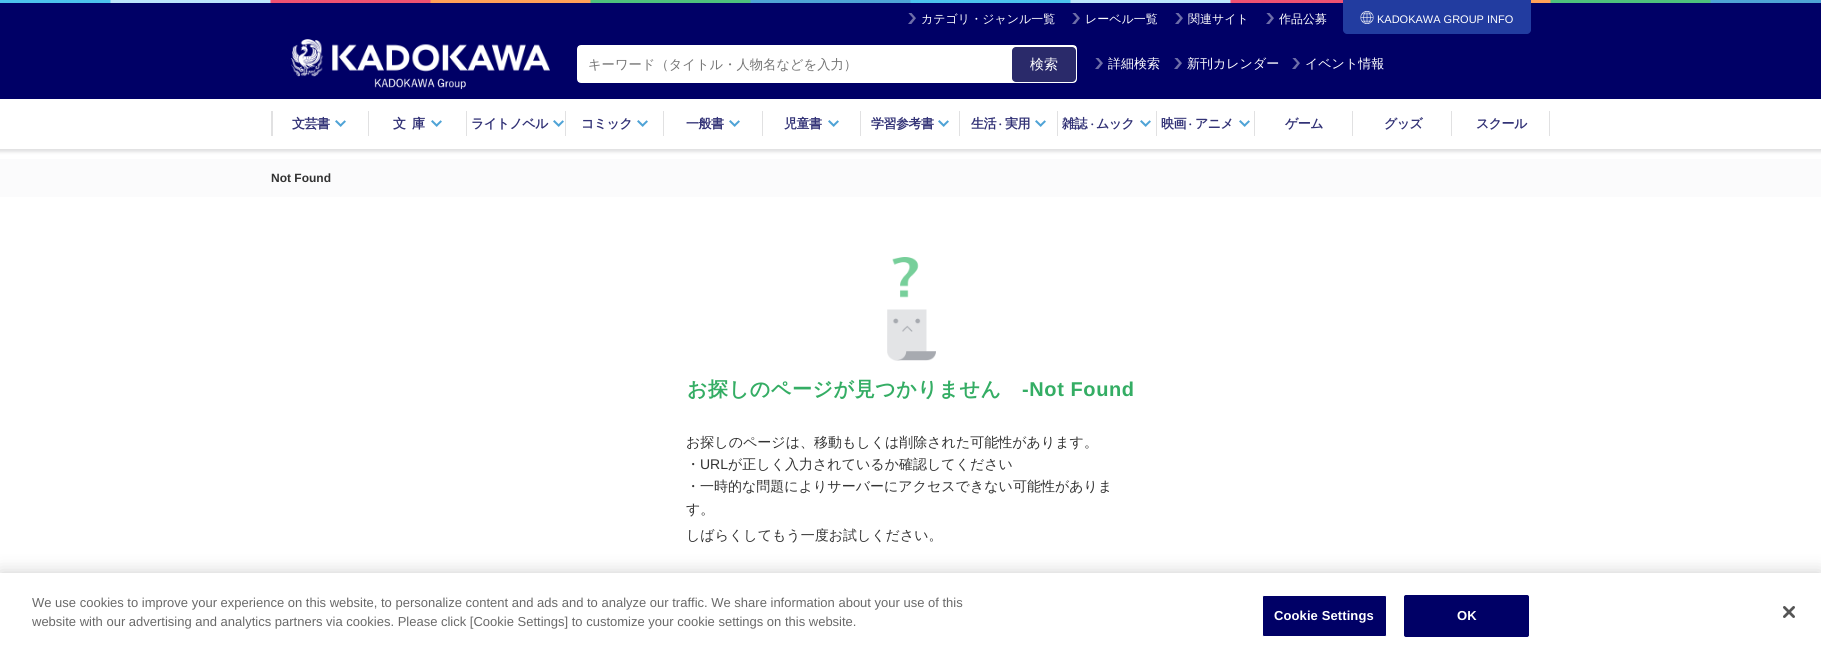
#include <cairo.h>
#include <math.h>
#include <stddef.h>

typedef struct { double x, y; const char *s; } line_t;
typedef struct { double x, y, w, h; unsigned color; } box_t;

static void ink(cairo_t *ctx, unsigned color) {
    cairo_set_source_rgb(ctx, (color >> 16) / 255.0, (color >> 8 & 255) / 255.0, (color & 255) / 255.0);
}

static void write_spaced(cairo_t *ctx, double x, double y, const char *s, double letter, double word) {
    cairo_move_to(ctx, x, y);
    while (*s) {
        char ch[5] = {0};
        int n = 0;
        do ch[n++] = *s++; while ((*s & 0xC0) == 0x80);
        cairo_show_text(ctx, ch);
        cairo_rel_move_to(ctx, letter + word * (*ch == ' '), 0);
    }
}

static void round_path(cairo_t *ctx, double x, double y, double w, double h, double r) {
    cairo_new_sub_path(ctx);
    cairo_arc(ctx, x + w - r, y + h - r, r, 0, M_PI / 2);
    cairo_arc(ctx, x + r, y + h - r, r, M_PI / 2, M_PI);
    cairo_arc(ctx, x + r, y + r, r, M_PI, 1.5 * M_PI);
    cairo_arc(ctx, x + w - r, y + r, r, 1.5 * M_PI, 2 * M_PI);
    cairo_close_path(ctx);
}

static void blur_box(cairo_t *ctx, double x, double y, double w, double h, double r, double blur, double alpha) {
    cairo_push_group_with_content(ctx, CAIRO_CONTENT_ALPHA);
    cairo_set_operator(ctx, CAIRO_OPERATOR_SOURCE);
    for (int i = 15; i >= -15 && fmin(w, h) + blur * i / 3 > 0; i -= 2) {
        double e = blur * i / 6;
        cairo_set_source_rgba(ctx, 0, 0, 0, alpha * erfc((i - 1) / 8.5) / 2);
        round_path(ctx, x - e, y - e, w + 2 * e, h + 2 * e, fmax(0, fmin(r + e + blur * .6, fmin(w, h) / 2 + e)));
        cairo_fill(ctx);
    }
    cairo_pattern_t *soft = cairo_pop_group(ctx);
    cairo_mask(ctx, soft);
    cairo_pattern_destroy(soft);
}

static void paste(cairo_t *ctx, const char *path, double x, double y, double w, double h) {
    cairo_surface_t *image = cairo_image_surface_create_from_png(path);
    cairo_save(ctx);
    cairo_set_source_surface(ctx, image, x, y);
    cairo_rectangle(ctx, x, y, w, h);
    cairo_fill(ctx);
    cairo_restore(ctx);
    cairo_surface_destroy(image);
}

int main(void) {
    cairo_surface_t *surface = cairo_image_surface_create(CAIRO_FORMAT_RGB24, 1821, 655);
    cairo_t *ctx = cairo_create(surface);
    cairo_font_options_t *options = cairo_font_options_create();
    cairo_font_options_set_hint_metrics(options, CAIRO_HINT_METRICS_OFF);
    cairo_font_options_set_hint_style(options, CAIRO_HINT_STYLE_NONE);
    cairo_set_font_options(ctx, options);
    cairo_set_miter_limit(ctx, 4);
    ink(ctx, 0xFFFFFF);
    cairo_paint(ctx);
    ink(ctx, 0xE1E1E2);
    blur_box(ctx, -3, -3, 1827, 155, 0, 1.5, 1);
    ink(ctx, 0x000066);
    cairo_rectangle(ctx, 0, 3, 1821, 96);
    cairo_fill(ctx);
    paste(ctx, "media/1.png", 0, 0, 1821, 3);
    paste(ctx, "media/2.png", 908, 13, 8, 11);
    cairo_select_font_face(ctx, "WenQuanYi Zen Hei Medium", CAIRO_FONT_SLANT_NORMAL, CAIRO_FONT_WEIGHT_NORMAL);
    cairo_set_font_size(ctx, 12);
    ink(ctx, 0xFFFFFF);
    cairo_move_to(ctx, 921, 23);
    cairo_show_text(ctx, "カテゴリ・ジャンル一覧");
    paste(ctx, "media/2.png", 1072, 13, 8, 11);
    cairo_move_to(ctx, 1085, 23);
    cairo_show_text(ctx, "レーベル一覧");
    paste(ctx, "media/2.png", 1175, 13, 8, 11);
    cairo_move_to(ctx, 1188, 23);
    cairo_show_text(ctx, "関連サイト");
    paste(ctx, "media/2.png", 1266, 13, 8, 11);
    cairo_move_to(ctx, 1279, 23);
    cairo_show_text(ctx, "作品公募");
    ink(ctx, 0x223CA0);
    cairo_new_path(ctx);
    cairo_move_to(ctx, 1343, -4);
    cairo_line_to(ctx, 1531, -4);
    cairo_line_to(ctx, 1531, 30);
    cairo_curve_to(ctx, 1531, 32, 1529, 34, 1527, 34);
    cairo_line_to(ctx, 1347, 34);
    cairo_curve_to(ctx, 1345, 34, 1343, 32, 1343, 30);
    cairo_close_path(ctx);
    cairo_fill(ctx);
    paste(ctx, "media/3.png", 1360, 11, 14, 13);
    cairo_select_font_face(ctx, "Liberation Sans", CAIRO_FONT_SLANT_NORMAL, CAIRO_FONT_WEIGHT_NORMAL);
    cairo_set_font_size(ctx, 11);
    ink(ctx, 0xFFFFFF);
    cairo_move_to(ctx, 1377, 23);
    cairo_show_text(ctx, "KADOKAWA GROUP INFO");
    paste(ctx, "media/4.png", 291, 39, 259, 38);
    paste(ctx, "media/5.png", 374, 78, 92, 12);
    round_path(ctx, 577.5, 45.5, 499, 37, 3.5);
    cairo_set_line_width(ctx, 1);
    cairo_stroke(ctx);
    cairo_rectangle(ctx, 578, 46, 498, 36);
    cairo_fill(ctx);
    cairo_select_font_face(ctx, "WenQuanYi Zen Hei Medium", CAIRO_FONT_SLANT_NORMAL, CAIRO_FONT_WEIGHT_NORMAL);
    cairo_set_font_size(ctx, 13.3);
    ink(ctx, 0x757575);
    cairo_move_to(ctx, 588, 69);
    cairo_show_text(ctx, "キーワード（タイトル・人物名などを入力）");
    ink(ctx, 0x2A2A6A);
    round_path(ctx, 1012, 47, 64, 35, 4);
    cairo_fill(ctx);
    cairo_set_font_size(ctx, 14);
    ink(ctx, 0xFFFFFF);
    cairo_move_to(ctx, 1030, 69);
    cairo_show_text(ctx, "検索");
    paste(ctx, "media/2.png", 1095, 58, 8, 11);
    cairo_set_font_size(ctx, 13);
    cairo_move_to(ctx, 1108, 68);
    cairo_show_text(ctx, "詳細検索");
    paste(ctx, "media/2.png", 1174, 58, 8, 11);
    cairo_move_to(ctx, 1187, 68);
    cairo_show_text(ctx, "新刊カレンダー");
    paste(ctx, "media/2.png", 1292, 58, 8, 11);
    cairo_move_to(ctx, 1305, 68);
    cairo_show_text(ctx, "イベント情報");
    {
        static const box_t items[] = {
            {0, 99, 1821, 50, 0xFFFFFF},
            {271, 111, 2, 25, 0xE1E1E2},
            {368, 111, 1, 25, 0xE1E1E2},
        };
        for (size_t i = 0; i < sizeof items / sizeof *items; i++) {
            ink(ctx, items[i].color);
            cairo_rectangle(ctx, items[i].x, items[i].y, items[i].w, items[i].h);
            cairo_fill(ctx);
        }
    }
    cairo_select_font_face(ctx, "WenQuanYi Zen Hei", CAIRO_FONT_SLANT_NORMAL, CAIRO_FONT_WEIGHT_BOLD);
    ink(ctx, 0x323276);
    write_spaced(ctx, 292, 128, "文芸書", -0.5, 0);
    paste(ctx, "media/6.png", 335, 120, 11, 7);
    ink(ctx, 0xE1E1E2);
    cairo_rectangle(ctx, 466, 111, 1, 25);
    cairo_fill(ctx);
    ink(ctx, 0x323276);
    write_spaced(ctx, 393, 128, "文庫", 6, 0);
    paste(ctx, "media/6.png", 431, 120, 11, 7);
    ink(ctx, 0xE1E1E2);
    cairo_rectangle(ctx, 565, 111, 1, 25);
    cairo_fill(ctx);
    ink(ctx, 0x323276);
    write_spaced(ctx, 471, 128, "ライトノベル", -0.5, 0);
    paste(ctx, "media/6.png", 553, 120, 11, 7);
    ink(ctx, 0xE1E1E2);
    cairo_rectangle(ctx, 663, 111, 1, 25);
    cairo_fill(ctx);
    ink(ctx, 0x323276);
    write_spaced(ctx, 581, 128, "コミック", -0.5, 0);
    paste(ctx, "media/6.png", 637, 120, 11, 7);
    ink(ctx, 0xE1E1E2);
    cairo_rectangle(ctx, 762, 111, 1, 25);
    cairo_fill(ctx);
    ink(ctx, 0x323276);
    write_spaced(ctx, 686, 128, "一般書", -0.5, 0);
    paste(ctx, "media/6.png", 729, 120, 11, 7);
    ink(ctx, 0xE1E1E2);
    cairo_rectangle(ctx, 860, 111, 1, 25);
    cairo_fill(ctx);
    ink(ctx, 0x323276);
    write_spaced(ctx, 784, 128, "児童書", -0.5, 0);
    paste(ctx, "media/6.png", 828, 120, 11, 7);
    ink(ctx, 0xE1E1E2);
    cairo_rectangle(ctx, 959, 111, 1, 25);
    cairo_fill(ctx);
    ink(ctx, 0x323276);
    write_spaced(ctx, 871, 128, "学習参考書", -0.5, 0);
    paste(ctx, "media/6.png", 938, 120, 11, 7);
    ink(ctx, 0xE1E1E2);
    cairo_rectangle(ctx, 1057, 111, 1, 25);
    cairo_fill(ctx);
    ink(ctx, 0x323276);
    write_spaced(ctx, 971, 128, "生活", -0.5, 0);
    cairo_set_font_size(ctx, 10);
    write_spaced(ctx, 995, 128, "・", -0.5, 0);
    cairo_set_font_size(ctx, 13);
    write_spaced(ctx, 1005, 128, "実用", -0.5, 0);
    paste(ctx, "media/6.png", 1035, 120, 11, 7);
    ink(ctx, 0xE1E1E2);
    cairo_rectangle(ctx, 1156, 111, 1, 25);
    cairo_fill(ctx);
    ink(ctx, 0x323276);
    write_spaced(ctx, 1062, 128, "雑誌", -0.5, 0);
    cairo_set_font_size(ctx, 10);
    write_spaced(ctx, 1087, 128, "・", -0.5, 0);
    cairo_set_font_size(ctx, 13);
    write_spaced(ctx, 1096, 128, "ムック", -0.5, 0);
    paste(ctx, "media/6.png", 1140, 120, 11, 7);
    ink(ctx, 0xE1E1E2);
    cairo_rectangle(ctx, 1254, 111, 1, 25);
    cairo_fill(ctx);
    ink(ctx, 0x323276);
    write_spaced(ctx, 1161, 128, "映画", -0.5, 0);
    cairo_set_font_size(ctx, 10);
    write_spaced(ctx, 1185, 128, "・", -0.5, 0);
    cairo_set_font_size(ctx, 13);
    write_spaced(ctx, 1195, 128, "アニメ", -0.5, 0);
    paste(ctx, "media/6.png", 1239, 120, 11, 7);
    ink(ctx, 0xE1E1E2);
    cairo_rectangle(ctx, 1352, 111, 1, 25);
    cairo_fill(ctx);
    ink(ctx, 0x323276);
    write_spaced(ctx, 1285, 128, "ゲーム", -0.5, 0);
    ink(ctx, 0xE1E1E2);
    cairo_rectangle(ctx, 1451, 111, 1, 25);
    cairo_fill(ctx);
    ink(ctx, 0x323276);
    write_spaced(ctx, 1384, 128, "グッズ", -0.5, 0);
    ink(ctx, 0xE1E1E2);
    cairo_rectangle(ctx, 1549, 111, 1, 25);
    cairo_fill(ctx);
    ink(ctx, 0x323276);
    write_spaced(ctx, 1476, 128, "スクール", -0.5, 0);
    ink(ctx, 0xFBFBFC);
    cairo_rectangle(ctx, 0, 159, 1821, 38);
    cairo_fill(ctx);
    cairo_select_font_face(ctx, "Liberation Sans", CAIRO_FONT_SLANT_NORMAL, CAIRO_FONT_WEIGHT_BOLD);
    cairo_set_font_size(ctx, 12);
    ink(ctx, 0x333333);
    cairo_move_to(ctx, 271, 182);
    cairo_show_text(ctx, "Not Found");
    paste(ctx, "media/7.png", 887, 257, 49, 104);
    cairo_select_font_face(ctx, "WenQuanYi Zen Hei", CAIRO_FONT_SLANT_NORMAL, CAIRO_FONT_WEIGHT_BOLD);
    cairo_set_font_size(ctx, 20);
    ink(ctx, 0x34AD64);
    write_spaced(ctx, 687, 396, "お探しのページが見つかりません", 0.6, 0);
    cairo_select_font_face(ctx, "Liberation Sans", CAIRO_FONT_SLANT_NORMAL, CAIRO_FONT_WEIGHT_BOLD);
    write_spaced(ctx, 1022, 396, "-Not Found", 0.6, 0);
    cairo_select_font_face(ctx, "WenQuanYi Zen Hei Medium", CAIRO_FONT_SLANT_NORMAL, CAIRO_FONT_WEIGHT_NORMAL);
    cairo_set_font_size(ctx, 14);
    ink(ctx, 0x333333);
    cairo_move_to(ctx, 686, 447);
    cairo_show_text(ctx, "お探しのページは、移動もしくは削除された可能性があります。");
    cairo_move_to(ctx, 686, 469);
    cairo_show_text(ctx, "・");
    cairo_select_font_face(ctx, "Liberation Sans", CAIRO_FONT_SLANT_NORMAL, CAIRO_FONT_WEIGHT_NORMAL);
    cairo_move_to(ctx, 700, 469);
    cairo_show_text(ctx, "URL");
    cairo_select_font_face(ctx, "WenQuanYi Zen Hei Medium", CAIRO_FONT_SLANT_NORMAL, CAIRO_FONT_WEIGHT_NORMAL);
    {
        static const line_t items[] = {
            {728, 469, "が正しく入力されているか確認してください"},
            {686, 491, "・一時的な問題によりサーバーにアクセスできない可能性がありま"},
            {686, 514, "す。"},
            {686, 540, "しばらくしてもう一度お試しください。"},
        };
        for (size_t i = 0; i < sizeof items / sizeof *items; i++) {
            cairo_move_to(ctx, items[i].x, items[i].y);
            cairo_show_text(ctx, items[i].s);
        }
    }
    ink(ctx, 0x000000);
    blur_box(ctx, 0, 573, 1821, 82, 0, 9, 0.2);
    ink(ctx, 0xFFFFFF);
    cairo_rectangle(ctx, 0, 573, 1821, 82);
    cairo_fill(ctx);
    cairo_select_font_face(ctx, "Liberation Sans", CAIRO_FONT_SLANT_NORMAL, CAIRO_FONT_WEIGHT_NORMAL);
    cairo_set_font_size(ctx, 13);
    ink(ctx, 0x696969);
    cairo_move_to(ctx, 32, 607);
    cairo_show_text(ctx, "We use cookies to improve your experience on this website, to personalize content and ads and to analyze our traffic. We share information about your use of this");
    cairo_move_to(ctx, 32, 626);
    cairo_show_text(ctx, "website with our advertising and analytics partners via cookies. Please click [Cookie Settings] to customize your cookie settings on this website.");
    ink(ctx, 0x000066);
    round_path(ctx, 1262.5, 595.5, 124, 41, 1.5);
    cairo_fill_preserve(ctx);
    ink(ctx, 0xFFFFFF);
    cairo_stroke(ctx);
    cairo_select_font_face(ctx, "Liberation Sans", CAIRO_FONT_SLANT_NORMAL, CAIRO_FONT_WEIGHT_BOLD);
    write_spaced(ctx, 1274, 620, "Cookie Settings", 0.1, 0);
    ink(ctx, 0x000066);
    round_path(ctx, 1404.5, 595.5, 124, 41, 1.5);
    cairo_fill_preserve(ctx);
    cairo_stroke(ctx);
    ink(ctx, 0xFFFFFF);
    write_spaced(ctx, 1457, 620, "OK", 0.1, 0);
    paste(ctx, "media/8.png", 1783, 606, 12, 12);
    cairo_surface_write_to_png(surface, "image.png");
    cairo_font_options_destroy(options);
    cairo_destroy(ctx);
    cairo_surface_destroy(surface);
    return 0;
}
